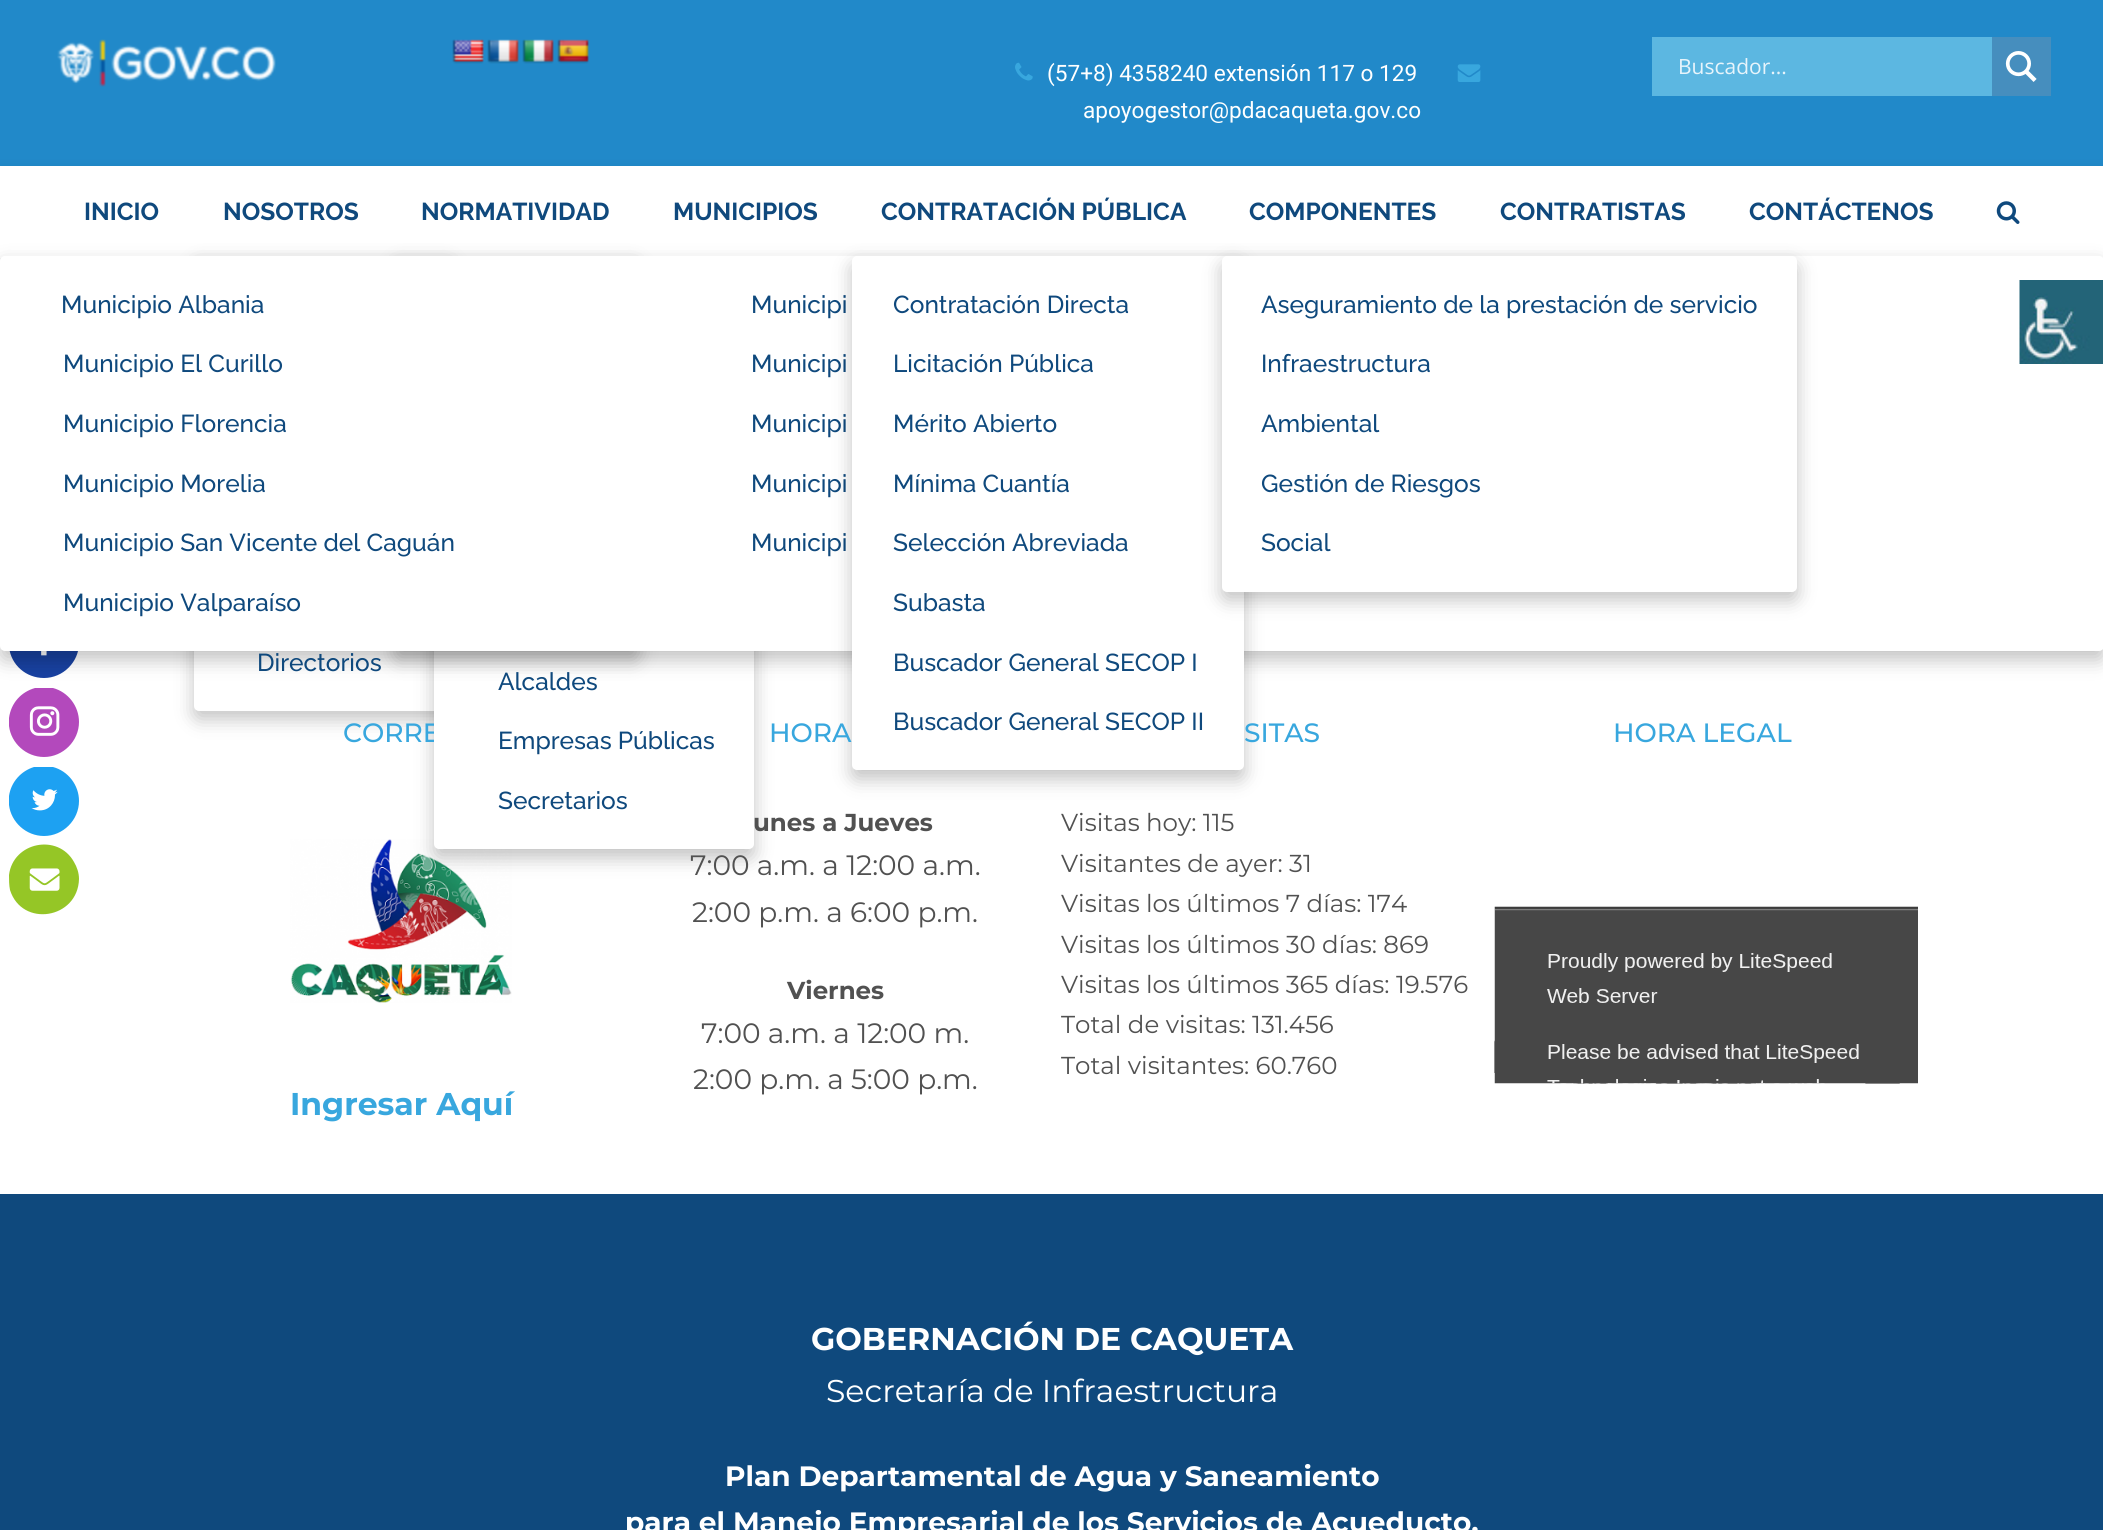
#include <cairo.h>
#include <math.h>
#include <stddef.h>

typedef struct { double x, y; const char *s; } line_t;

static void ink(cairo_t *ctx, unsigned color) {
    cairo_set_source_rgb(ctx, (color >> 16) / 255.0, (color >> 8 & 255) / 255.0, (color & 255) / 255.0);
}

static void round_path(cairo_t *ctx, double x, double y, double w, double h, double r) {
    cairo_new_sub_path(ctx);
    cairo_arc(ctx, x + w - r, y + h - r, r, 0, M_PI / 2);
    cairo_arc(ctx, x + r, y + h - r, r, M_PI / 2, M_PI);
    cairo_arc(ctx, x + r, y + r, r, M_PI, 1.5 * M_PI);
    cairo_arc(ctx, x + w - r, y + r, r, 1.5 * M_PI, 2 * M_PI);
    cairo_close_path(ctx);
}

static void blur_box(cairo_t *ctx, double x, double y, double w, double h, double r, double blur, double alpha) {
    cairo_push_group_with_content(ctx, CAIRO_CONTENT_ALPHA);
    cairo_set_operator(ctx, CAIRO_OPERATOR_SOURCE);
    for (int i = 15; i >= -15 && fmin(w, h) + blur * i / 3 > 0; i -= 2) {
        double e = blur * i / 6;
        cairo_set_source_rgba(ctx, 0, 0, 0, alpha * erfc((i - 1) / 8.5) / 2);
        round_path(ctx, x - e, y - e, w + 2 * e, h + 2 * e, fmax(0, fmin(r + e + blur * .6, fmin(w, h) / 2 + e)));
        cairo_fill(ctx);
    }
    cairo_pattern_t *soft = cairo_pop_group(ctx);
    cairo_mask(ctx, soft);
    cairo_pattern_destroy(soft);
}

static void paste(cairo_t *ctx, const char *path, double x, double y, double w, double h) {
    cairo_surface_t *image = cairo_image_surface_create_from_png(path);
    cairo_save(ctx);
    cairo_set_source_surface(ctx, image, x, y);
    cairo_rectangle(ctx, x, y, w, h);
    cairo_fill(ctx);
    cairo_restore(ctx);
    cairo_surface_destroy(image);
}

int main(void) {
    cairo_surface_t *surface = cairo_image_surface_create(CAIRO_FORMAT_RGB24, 2103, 1530);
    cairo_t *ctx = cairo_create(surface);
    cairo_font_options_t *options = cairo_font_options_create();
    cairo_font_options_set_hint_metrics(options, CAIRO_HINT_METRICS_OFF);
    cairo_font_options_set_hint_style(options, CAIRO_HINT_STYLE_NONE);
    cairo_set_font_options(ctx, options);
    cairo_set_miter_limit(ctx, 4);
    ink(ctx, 0xFFFFFF);
    cairo_paint(ctx);
    ink(ctx, 0x2189C9);
    cairo_rectangle(ctx, 0, 0, 2103, 166);
    cairo_fill(ctx);
    paste(ctx, "media/1.png", 57, 39, 219, 48);
    paste(ctx, "media/2.png", 452, 39, 32, 25);
    paste(ctx, "media/3.png", 487, 39, 32, 25);
    paste(ctx, "media/4.png", 522, 39, 32, 25);
    paste(ctx, "media/5.png", 557, 39, 32, 25);
    paste(ctx, "media/6.png", 1015, 62, 18, 19);
    cairo_select_font_face(ctx, "Roboto", CAIRO_FONT_SLANT_NORMAL, CAIRO_FONT_WEIGHT_NORMAL);
    cairo_set_font_size(ctx, 22.6);
    ink(ctx, 0xFFFFFF);
    cairo_move_to(ctx, 1047, 81);
    cairo_show_text(ctx, "(57+8) 4358240 extensión 117 o 129");
    paste(ctx, "media/7.png", 1457, 64, 24, 18);
    cairo_move_to(ctx, 1083, 118);
    cairo_show_text(ctx, "apoyogestor@pdacaqueta.gov.co");
    ink(ctx, 0x5CB7E1);
    cairo_rectangle(ctx, 1652, 37, 340, 59);
    cairo_fill(ctx);
    cairo_select_font_face(ctx, "Open Sans", CAIRO_FONT_SLANT_NORMAL, CAIRO_FONT_WEIGHT_NORMAL);
    cairo_set_font_size(ctx, 21);
    ink(ctx, 0xE7F4FB);
    cairo_move_to(ctx, 1678, 74);
    cairo_show_text(ctx, "Buscador...");
    ink(ctx, 0x468EBE);
    cairo_rectangle(ctx, 1992, 37, 59, 59);
    cairo_fill(ctx);
    paste(ctx, "media/8.png", 2005, 51, 32, 31);
    ink(ctx, 0x000000);
    blur_box(ctx, 0, 170, 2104, 91, 0, 6, 0.1);
    ink(ctx, 0xFFFFFF);
    cairo_rectangle(ctx, 0, 166, 2103, 92);
    cairo_fill(ctx);
    cairo_select_font_face(ctx, "Raleway", CAIRO_FONT_SLANT_NORMAL, CAIRO_FONT_WEIGHT_BOLD);
    cairo_set_font_size(ctx, 24.5);
    ink(ctx, 0x0F497D);
    cairo_move_to(ctx, 673, 220);
    cairo_show_text(ctx, "MUNICIPIOS");
    ink(ctx, 0x000000);
    blur_box(ctx, 194, 264, 259, 455, 5, 9.5, 0.24);
    ink(ctx, 0xFFFFFF);
    round_path(ctx, 195, 257, 257, 453, 4);
    cairo_fill_preserve(ctx);
    cairo_stroke(ctx);
    paste(ctx, "media/10.png", 290, 839, 222, 164);
    ink(ctx, 0x000000);
    blur_box(ctx, 434, 641, 320, 217, 5, 9.5, 0.24);
    cairo_select_font_face(ctx, "Montserrat Medium", CAIRO_FONT_SLANT_NORMAL, CAIRO_FONT_WEIGHT_NORMAL);
    cairo_set_font_size(ctx, 26.5);
    ink(ctx, 0x38A7DE);
    cairo_move_to(ctx, 343, 742);
    cairo_show_text(ctx, "CORRE");
    ink(ctx, 0xFFFFFF);
    round_path(ctx, 435, 633, 318, 215, 4);
    cairo_fill_preserve(ctx);
    cairo_stroke(ctx);
    ink(ctx, 0x1841A0);
    cairo_new_path(ctx);
    cairo_move_to(ctx, 9, 639);
    cairo_curve_to(ctx, 11, 624, 22, 612, 36, 609);
    cairo_line_to(ctx, 52, 609);
    cairo_curve_to(ctx, 67, 613, 79, 626, 79, 643);
    cairo_curve_to(ctx, 79, 662, 63, 678, 44, 678);
    cairo_curve_to(ctx, 26, 678, 11, 665, 9, 647);
    cairo_close_path(ctx);
    cairo_fill(ctx);
    paste(ctx, "media/13.png", 41, 651, 6, 5);
    ink(ctx, 0xB349BC);
    cairo_new_path(ctx);
    cairo_move_to(ctx, 9, 718);
    cairo_curve_to(ctx, 11, 703, 21, 692, 35, 688);
    cairo_line_to(ctx, 53, 688);
    cairo_curve_to(ctx, 68, 692, 79, 706, 79, 722);
    cairo_curve_to(ctx, 79, 741, 63, 757, 44, 757);
    cairo_curve_to(ctx, 26, 757, 11, 743, 9, 726);
    cairo_close_path(ctx);
    cairo_fill(ctx);
    ink(ctx, 0x000000);
    blur_box(ctx, 0, 264, 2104, 396, 5, 9.5, 0.24);
    blur_box(ctx, 394, 264, 245, 396, 5, 9.5, 0.24);
    ink(ctx, 0xFFFFFF);
    round_path(ctx, 1, 257, 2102, 393, 4);
    cairo_fill_preserve(ctx);
    cairo_stroke(ctx);
    cairo_select_font_face(ctx, "Raleway Medium", CAIRO_FONT_SLANT_NORMAL, CAIRO_FONT_WEIGHT_NORMAL);
    cairo_set_font_size(ctx, 24.5);
    ink(ctx, 0x0F497D);
    {
        static const line_t items[] = {
            {61, 313, "Municipio Albania"},
            {751, 313, "Municipi"},
            {63, 372, "Municipio El Curillo"},
            {751, 372, "Municipi"},
            {63, 432, "Municipio Florencia"},
            {751, 432, "Municipi"},
            {63, 492, "Municipio Morelia"},
            {751, 492, "Municipi"},
            {63, 551, "Municipio San Vicente del Caguán"},
            {751, 551, "Municipi"},
            {63, 611, "Municipio Valparaíso"},
        };
        for (size_t i = 0; i < sizeof items / sizeof *items; i++) {
            cairo_move_to(ctx, items[i].x, items[i].y);
            cairo_show_text(ctx, items[i].s);
        }
    }
    cairo_select_font_face(ctx, "Raleway", CAIRO_FONT_SLANT_NORMAL, CAIRO_FONT_WEIGHT_BOLD);
    cairo_move_to(ctx, 881, 220);
    cairo_show_text(ctx, "CONTRATACIÓN PÚBLICA");
    ink(ctx, 0x000000);
    blur_box(ctx, 852, 264, 392, 515, 5, 9.5, 0.24);
    ink(ctx, 0xFFFFFF);
    round_path(ctx, 853, 257, 390, 512, 4);
    cairo_fill_preserve(ctx);
    cairo_stroke(ctx);
    cairo_select_font_face(ctx, "Raleway Medium", CAIRO_FONT_SLANT_NORMAL, CAIRO_FONT_WEIGHT_NORMAL);
    ink(ctx, 0x0F497D);
    {
        static const line_t items[] = {
            {893, 313, "Contratación Directa"},
            {893, 372, "Licitación Pública"},
            {893, 432, "Mérito Abierto"},
            {893, 492, "Mínima Cuantía"},
            {893, 551, "Selección Abreviada"},
            {893, 611, "Subasta"},
            {893, 671, "Buscador General SECOP I"},
            {893, 730, "Buscador General SECOP II"},
        };
        for (size_t i = 0; i < sizeof items / sizeof *items; i++) {
            cairo_move_to(ctx, items[i].x, items[i].y);
            cairo_show_text(ctx, items[i].s);
        }
    }
    cairo_select_font_face(ctx, "Raleway", CAIRO_FONT_SLANT_NORMAL, CAIRO_FONT_WEIGHT_BOLD);
    cairo_move_to(ctx, 1749, 220);
    cairo_show_text(ctx, "CONTÁCTENOS");
    paste(ctx, "media/9.png", 1996, 201, 24, 23);
    cairo_move_to(ctx, 84, 220);
    cairo_show_text(ctx, "INICIO");
    cairo_move_to(ctx, 223, 220);
    cairo_show_text(ctx, "NOSOTROS");
    cairo_select_font_face(ctx, "Raleway Medium", CAIRO_FONT_SLANT_NORMAL, CAIRO_FONT_WEIGHT_NORMAL);
    {
        static const line_t items[] = {
            {257, 671, "Directorios"},
            {498, 690, "Alcaldes"},
            {498, 749, "Empresas Públicas"},
            {498, 809, "Secretarios"},
        };
        for (size_t i = 0; i < sizeof items / sizeof *items; i++) {
            cairo_move_to(ctx, items[i].x, items[i].y);
            cairo_show_text(ctx, items[i].s);
        }
    }
    cairo_select_font_face(ctx, "Raleway", CAIRO_FONT_SLANT_NORMAL, CAIRO_FONT_WEIGHT_BOLD);
    cairo_move_to(ctx, 421, 220);
    cairo_show_text(ctx, "NORMATIVIDAD");
    cairo_move_to(ctx, 1249, 220);
    cairo_show_text(ctx, "COMPONENTES");
    ink(ctx, 0x000000);
    blur_box(ctx, 1222, 264, 575, 336, 5, 9.5, 0.24);
    ink(ctx, 0xFFFFFF);
    round_path(ctx, 1223, 257, 573, 334, 4);
    cairo_fill_preserve(ctx);
    cairo_stroke(ctx);
    cairo_select_font_face(ctx, "Raleway Medium", CAIRO_FONT_SLANT_NORMAL, CAIRO_FONT_WEIGHT_NORMAL);
    ink(ctx, 0x0F497D);
    {
        static const line_t items[] = {
            {1261, 313, "Aseguramiento de la prestación de servicio"},
            {1261, 372, "Infraestructura"},
            {1261, 432, "Ambiental"},
            {1261, 492, "Gestión de Riesgos"},
            {1261, 551, "Social"},
        };
        for (size_t i = 0; i < sizeof items / sizeof *items; i++) {
            cairo_move_to(ctx, items[i].x, items[i].y);
            cairo_show_text(ctx, items[i].s);
        }
    }
    cairo_select_font_face(ctx, "Raleway", CAIRO_FONT_SLANT_NORMAL, CAIRO_FONT_WEIGHT_BOLD);
    cairo_move_to(ctx, 1500, 220);
    cairo_show_text(ctx, "CONTRATISTAS");
    cairo_select_font_face(ctx, "Montserrat", CAIRO_FONT_SLANT_NORMAL, CAIRO_FONT_WEIGHT_BOLD);
    cairo_set_font_size(ctx, 31.5);
    ink(ctx, 0x38A7DE);
    cairo_move_to(ctx, 290, 1115);
    cairo_show_text(ctx, "Ingresar Aquí");
    cairo_select_font_face(ctx, "Montserrat Medium", CAIRO_FONT_SLANT_NORMAL, CAIRO_FONT_WEIGHT_NORMAL);
    cairo_set_font_size(ctx, 26.5);
    cairo_move_to(ctx, 769, 742);
    cairo_show_text(ctx, "HORA");
    cairo_select_font_face(ctx, "Montserrat", CAIRO_FONT_SLANT_NORMAL, CAIRO_FONT_WEIGHT_BOLD);
    cairo_set_font_size(ctx, 24.5);
    ink(ctx, 0x515151);
    cairo_move_to(ctx, 753, 831);
    cairo_show_text(ctx, "unes a Jueves");
    cairo_select_font_face(ctx, "Montserrat", CAIRO_FONT_SLANT_NORMAL, CAIRO_FONT_WEIGHT_NORMAL);
    cairo_set_font_size(ctx, 28);
    cairo_move_to(ctx, 690, 875);
    cairo_show_text(ctx, "7:00 a.m. a 12:00 a.m.");
    cairo_move_to(ctx, 692, 922);
    cairo_show_text(ctx, "2:00 p.m. a 6:00 p.m.");
    cairo_select_font_face(ctx, "Montserrat", CAIRO_FONT_SLANT_NORMAL, CAIRO_FONT_WEIGHT_BOLD);
    cairo_set_font_size(ctx, 24.5);
    cairo_move_to(ctx, 787, 999);
    cairo_show_text(ctx, "Viernes");
    cairo_select_font_face(ctx, "Montserrat", CAIRO_FONT_SLANT_NORMAL, CAIRO_FONT_WEIGHT_NORMAL);
    cairo_set_font_size(ctx, 28);
    cairo_move_to(ctx, 701, 1043);
    cairo_show_text(ctx, "7:00 a.m. a 12:00 m.");
    cairo_move_to(ctx, 693, 1089);
    cairo_show_text(ctx, "2:00 p.m. a 5:00 p.m.");
    cairo_select_font_face(ctx, "Montserrat Medium", CAIRO_FONT_SLANT_NORMAL, CAIRO_FONT_WEIGHT_NORMAL);
    cairo_set_font_size(ctx, 26.5);
    ink(ctx, 0x38A7DE);
    cairo_move_to(ctx, 1244, 742);
    cairo_show_text(ctx, "SITAS");
    cairo_select_font_face(ctx, "Montserrat", CAIRO_FONT_SLANT_NORMAL, CAIRO_FONT_WEIGHT_NORMAL);
    cairo_set_font_size(ctx, 24.5);
    ink(ctx, 0x515151);
    {
        static const line_t items[] = {
            {1061, 831, "Visitas hoy: 115"},
            {1061, 872, "Visitantes de ayer: 31"},
            {1061, 912, "Visitas los últimos 7 días: 174"},
            {1061, 953, "Visitas los últimos 30 días: 869"},
            {1061, 993, "Visitas los últimos 365 días: 19.576"},
            {1061, 1033, "Total de visitas: 131.456"},
            {1061, 1074, "Total visitantes: 60.760"},
        };
        for (size_t i = 0; i < sizeof items / sizeof *items; i++) {
            cairo_move_to(ctx, items[i].x, items[i].y);
            cairo_show_text(ctx, items[i].s);
        }
    }
    cairo_select_font_face(ctx, "Montserrat Medium", CAIRO_FONT_SLANT_NORMAL, CAIRO_FONT_WEIGHT_NORMAL);
    cairo_set_font_size(ctx, 26.5);
    ink(ctx, 0x38A7DE);
    cairo_move_to(ctx, 1613, 742);
    cairo_show_text(ctx, "HORA LEGAL");
    paste(ctx, "media/11.png", 1494, 906, 424, 178);
    ink(ctx, 0x0F497D);
    cairo_rectangle(ctx, 0, 1194, 2103, 336);
    cairo_fill(ctx);
    cairo_select_font_face(ctx, "Montserrat", CAIRO_FONT_SLANT_NORMAL, CAIRO_FONT_WEIGHT_BOLD);
    cairo_set_font_size(ctx, 31.5);
    ink(ctx, 0xFFFFFF);
    cairo_move_to(ctx, 811, 1350);
    cairo_show_text(ctx, "GOBERNACIÓN DE CAQUETA");
    cairo_select_font_face(ctx, "Montserrat", CAIRO_FONT_SLANT_NORMAL, CAIRO_FONT_WEIGHT_NORMAL);
    cairo_move_to(ctx, 826, 1402);
    cairo_show_text(ctx, "Secretaría de Infraestructura");
    cairo_select_font_face(ctx, "Montserrat", CAIRO_FONT_SLANT_NORMAL, CAIRO_FONT_WEIGHT_BOLD);
    cairo_set_font_size(ctx, 28);
    cairo_move_to(ctx, 725, 1486);
    cairo_show_text(ctx, "Plan Departamental de Agua y Saneamiento");
    cairo_move_to(ctx, 625, 1532);
    cairo_show_text(ctx, "para el Manejo Empresarial de los Servicios de Acueducto,");
    paste(ctx, "media/12.png", 2019, 280, 84, 84);
    paste(ctx, "media/14.png", 29, 706, 31, 30);
    ink(ctx, 0x1DA1F2);
    cairo_new_path(ctx);
    cairo_move_to(ctx, 9, 796);
    cairo_curve_to(ctx, 11, 782, 21, 771, 34, 767);
    cairo_line_to(ctx, 53, 767);
    cairo_curve_to(ctx, 68, 771, 79, 785, 79, 801);
    cairo_curve_to(ctx, 79, 820, 63, 836, 44, 836);
    cairo_curve_to(ctx, 26, 836, 11, 822, 9, 805);
    cairo_close_path(ctx);
    cairo_fill(ctx);
    paste(ctx, "media/15.png", 31, 789, 27, 22);
    ink(ctx, 0x95C626);
    cairo_new_path(ctx);
    cairo_move_to(ctx, 9, 875);
    cairo_curve_to(ctx, 13, 842, 58, 833, 74, 862);
    cairo_curve_to(ctx, 77, 867, 79, 873, 79, 879);
    cairo_curve_to(ctx, 78, 919, 22, 928, 10, 890);
    cairo_curve_to(ctx, 9, 885, 9, 880, 9, 875);
    cairo_close_path(ctx);
    cairo_fill(ctx);
    paste(ctx, "media/16.png", 29, 868, 31, 23);
    cairo_surface_write_to_png(surface, "image.png");
    cairo_font_options_destroy(options);
    cairo_destroy(ctx);
    cairo_surface_destroy(surface);
    return 0;
}
